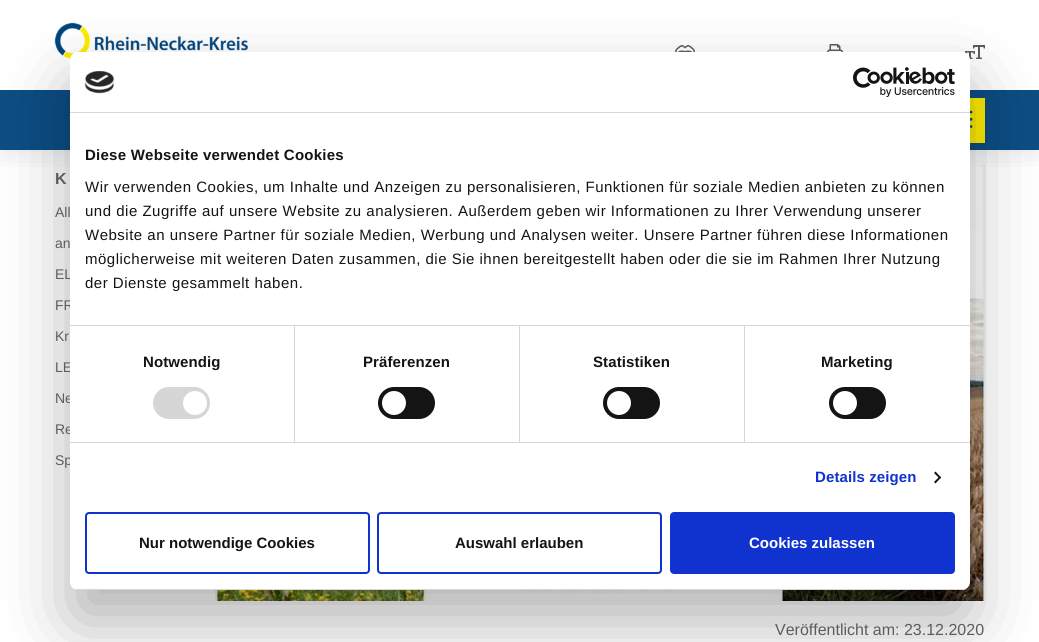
#include <cairo.h>
#include <math.h>
#include <stddef.h>

typedef struct { double x, y; const char *s; } line_t;

static void ink(cairo_t *ctx, unsigned color) {
    cairo_set_source_rgb(ctx, (color >> 16) / 255.0, (color >> 8 & 255) / 255.0, (color & 255) / 255.0);
}

static void write_spaced(cairo_t *ctx, double x, double y, const char *s, double letter, double word) {
    cairo_move_to(ctx, x, y);
    while (*s) {
        char ch[5] = {0};
        int n = 0;
        do ch[n++] = *s++; while ((*s & 0xC0) == 0x80);
        cairo_show_text(ctx, ch);
        cairo_rel_move_to(ctx, letter + word * (*ch == ' '), 0);
    }
}

static void round_path(cairo_t *ctx, double x, double y, double w, double h, double r) {
    cairo_new_sub_path(ctx);
    cairo_arc(ctx, x + w - r, y + h - r, r, 0, M_PI / 2);
    cairo_arc(ctx, x + r, y + h - r, r, M_PI / 2, M_PI);
    cairo_arc(ctx, x + r, y + r, r, M_PI, 1.5 * M_PI);
    cairo_arc(ctx, x + w - r, y + r, r, 1.5 * M_PI, 2 * M_PI);
    cairo_close_path(ctx);
}

static void blur_box(cairo_t *ctx, double x, double y, double w, double h, double r, double blur, double alpha) {
    cairo_push_group_with_content(ctx, CAIRO_CONTENT_ALPHA);
    cairo_set_operator(ctx, CAIRO_OPERATOR_SOURCE);
    for (int i = 15; i >= -15 && fmin(w, h) + blur * i / 3 > 0; i -= 2) {
        double e = blur * i / 6;
        cairo_set_source_rgba(ctx, 0, 0, 0, alpha * erfc((i - 1) / 8.5) / 2);
        round_path(ctx, x - e, y - e, w + 2 * e, h + 2 * e, fmax(0, fmin(r + e + blur * .6, fmin(w, h) / 2 + e)));
        cairo_fill(ctx);
    }
    cairo_pattern_t *soft = cairo_pop_group(ctx);
    cairo_mask(ctx, soft);
    cairo_pattern_destroy(soft);
}

static void paste(cairo_t *ctx, const char *path, double x, double y, double w, double h) {
    cairo_surface_t *image = cairo_image_surface_create_from_png(path);
    cairo_save(ctx);
    cairo_set_source_surface(ctx, image, x, y);
    cairo_rectangle(ctx, x, y, w, h);
    cairo_fill(ctx);
    cairo_restore(ctx);
    cairo_surface_destroy(image);
}

int main(void) {
    cairo_surface_t *surface = cairo_image_surface_create(CAIRO_FORMAT_RGB24, 1039, 642);
    cairo_t *ctx = cairo_create(surface);
    cairo_font_options_t *options = cairo_font_options_create();
    cairo_font_options_set_hint_metrics(options, CAIRO_HINT_METRICS_OFF);
    cairo_font_options_set_hint_style(options, CAIRO_HINT_STYLE_NONE);
    cairo_set_font_options(ctx, options);
    cairo_set_miter_limit(ctx, 4);
    ink(ctx, 0xFFFFFF);
    cairo_paint(ctx);
    paste(ctx, "media/8.png", 215, 165, 770, 436);
    cairo_save(ctx);
    cairo_rectangle(ctx, 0, 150, 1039, 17);
    cairo_clip(ctx);
    ink(ctx, 0x2E4658);
    blur_box(ctx, 0, 0, 1039, 150, 0, 15, 0.15);
    cairo_restore(ctx);
    paste(ctx, "media/3.png", 54, 22, 194, 37);
    paste(ctx, "media/4.png", 675, 45, 20, 7);
    paste(ctx, "media/5.png", 827, 44, 16, 8);
    paste(ctx, "media/6.png", 965, 45, 20, 14);
    ink(ctx, 0x0C4D83);
    cairo_rectangle(ctx, 0, 90, 1039, 60);
    cairo_fill(ctx);
    ink(ctx, 0xFEED01);
    cairo_rectangle(ctx, 970, 98, 15, 45);
    cairo_fill(ctx);
    paste(ctx, "media/7.png", 970, 110, 3, 18);
    ink(ctx, 0x000000);
    blur_box(ctx, 70, 84, 900, 538, 8, 34, 0.3);
    cairo_select_font_face(ctx, "Liberation Sans", CAIRO_FONT_SLANT_NORMAL, CAIRO_FONT_WEIGHT_NORMAL);
    cairo_set_font_size(ctx, 14);
    ink(ctx, 0x5C5C5C);
    {
        static const line_t items[] = {
            {55, 279, "EL"},
            {55, 310, "FR"},
            {55, 372, "LE"},
            {55, 403, "Ne"},
            {55, 434, "Re"},
            {55, 465, "Sp"},
        };
        for (size_t i = 0; i < sizeof items / sizeof *items; i++) {
            cairo_move_to(ctx, items[i].x, items[i].y);
            cairo_show_text(ctx, items[i].s);
        }
    }
    ink(ctx, 0xFFFFFF);
    round_path(ctx, 70, 52, 900, 538, 8);
    cairo_fill(ctx);
    ink(ctx, 0xD6D6D6);
    cairo_rectangle(ctx, 70, 112, 900, 1);
    cairo_fill(ctx);
    paste(ctx, "media/1.png", 84, 71, 30, 23);
    paste(ctx, "media/2.png", 853, 67, 102, 30);
    cairo_rectangle(ctx, 70, 325, 900, 1);
    cairo_fill(ctx);
    cairo_select_font_face(ctx, "Liberation Sans", CAIRO_FONT_SLANT_NORMAL, CAIRO_FONT_WEIGHT_BOLD);
    cairo_set_font_size(ctx, 15);
    ink(ctx, 0x141414);
    write_spaced(ctx, 85, 160, "Diese Webseite verwendet Cookies", 0.25, 0);
    cairo_select_font_face(ctx, "Liberation Sans", CAIRO_FONT_SLANT_NORMAL, CAIRO_FONT_WEIGHT_NORMAL);
    {
        static const line_t items[] = {
            {85, 192, "Wir verwenden Cookies, um Inhalte und Anzeigen zu personalisieren, Funktionen für soziale Medien anbieten zu können"},
            {85, 216, "und die Zugriffe auf unsere Website zu analysieren. Außerdem geben wir Informationen zu Ihrer Verwendung unserer"},
            {85, 240, "Website an unsere Partner für soziale Medien, Werbung und Analysen weiter. Unsere Partner führen diese Informationen"},
            {85, 264, "möglicherweise mit weiteren Daten zusammen, die Sie ihnen bereitgestellt haben oder die sie im Rahmen Ihrer Nutzung"},
            {85, 288, "der Dienste gesammelt haben."},
        };
        for (size_t i = 0; i < sizeof items / sizeof *items; i++) {
            write_spaced(ctx, items[i].x, items[i].y, items[i].s, 0.5, 0);
        }
    }
    ink(ctx, 0xD6D6D6);
    cairo_rectangle(ctx, 70, 442, 900, 1);
    cairo_fill(ctx);
    cairo_rectangle(ctx, 294, 326, 1, 116);
    cairo_fill(ctx);
    cairo_select_font_face(ctx, "Liberation Sans", CAIRO_FONT_SLANT_NORMAL, CAIRO_FONT_WEIGHT_BOLD);
    ink(ctx, 0x141414);
    write_spaced(ctx, 143, 367, "Notwendig", 0.1, 0);
    ink(ctx, 0xD6D6D6);
    round_path(ctx, 153, 387, 57, 32, 16);
    cairo_fill(ctx);
    ink(ctx, 0xFFFFFF);
    cairo_arc(ctx, 195, 403, 12, 0, 2 * M_PI);
    cairo_fill(ctx);
    ink(ctx, 0xD6D6D6);
    cairo_rectangle(ctx, 519, 326, 1, 116);
    cairo_fill(ctx);
    ink(ctx, 0x141414);
    write_spaced(ctx, 363, 367, "Präferenzen", 0.1, 0);
    round_path(ctx, 378, 387, 57, 32, 16);
    cairo_fill(ctx);
    ink(ctx, 0xFFFFFF);
    cairo_arc(ctx, 394, 403, 12, 0, 2 * M_PI);
    cairo_fill(ctx);
    ink(ctx, 0xD6D6D6);
    cairo_rectangle(ctx, 744, 326, 1, 116);
    cairo_fill(ctx);
    ink(ctx, 0x141414);
    write_spaced(ctx, 593, 367, "Statistiken", 0.1, 0);
    round_path(ctx, 603, 387, 57, 32, 16);
    cairo_fill(ctx);
    ink(ctx, 0xFFFFFF);
    cairo_arc(ctx, 619, 403, 12, 0, 2 * M_PI);
    cairo_fill(ctx);
    ink(ctx, 0x141414);
    write_spaced(ctx, 821, 367, "Marketing", 0.1, 0);
    round_path(ctx, 829, 387, 57, 32, 16);
    cairo_fill(ctx);
    ink(ctx, 0xFFFFFF);
    cairo_arc(ctx, 845, 403, 12, 0, 2 * M_PI);
    cairo_fill(ctx);
    ink(ctx, 0x1032CF);
    write_spaced(ctx, 815, 482, "Details zeigen", 0.1, 0);
    ink(ctx, 0x141414);
    cairo_new_path(ctx);
    cairo_move_to(ctx, 935.5, 471.5);
    cairo_line_to(ctx, 941, 477.5);
    cairo_line_to(ctx, 940, 479);
    cairo_line_to(ctx, 934, 473);
    cairo_close_path(ctx);
    cairo_fill(ctx);
    cairo_new_path(ctx);
    cairo_move_to(ctx, 940, 476);
    cairo_line_to(ctx, 941, 477.5);
    cairo_line_to(ctx, 935.5, 483.5);
    cairo_line_to(ctx, 934, 482);
    cairo_close_path(ctx);
    cairo_fill(ctx);
    cairo_save(ctx);
    round_path(ctx, 70, 52, 900, 538, 8);
    cairo_clip(ctx);
    ink(ctx, 0xD6D6D6);
    cairo_rectangle(ctx, 70, 589, 900, 1);
    cairo_fill(ctx);
    cairo_restore(ctx);
    round_path(ctx, 86, 513, 283, 60, 3);
    ink(ctx, 0x1032CF);
    cairo_stroke(ctx);
    ink(ctx, 0x141414);
    cairo_move_to(ctx, 139, 548);
    cairo_show_text(ctx, "Nur notwendige Cookies");
    round_path(ctx, 378, 513, 283, 60, 3);
    ink(ctx, 0x1032CF);
    cairo_stroke(ctx);
    ink(ctx, 0x141414);
    cairo_move_to(ctx, 455, 548);
    cairo_show_text(ctx, "Auswahl erlauben");
    ink(ctx, 0x1032CF);
    round_path(ctx, 671, 513, 283, 60, 3);
    cairo_fill_preserve(ctx);
    cairo_stroke(ctx);
    ink(ctx, 0xFFFFFF);
    cairo_move_to(ctx, 749, 548);
    cairo_show_text(ctx, "Cookies zulassen");
    cairo_set_font_size(ctx, 16);
    ink(ctx, 0x5C5C5C);
    cairo_move_to(ctx, 55, 184);
    cairo_show_text(ctx, "K");
    cairo_select_font_face(ctx, "Liberation Sans", CAIRO_FONT_SLANT_NORMAL, CAIRO_FONT_WEIGHT_NORMAL);
    cairo_set_font_size(ctx, 14);
    {
        static const line_t items[] = {
            {55, 217, "All"},
            {55, 248, "an"},
            {55, 341, "Kr"},
        };
        for (size_t i = 0; i < sizeof items / sizeof *items; i++) {
            cairo_move_to(ctx, items[i].x, items[i].y);
            cairo_show_text(ctx, items[i].s);
        }
    }
    cairo_set_font_size(ctx, 16);
    cairo_move_to(ctx, 775, 635);
    cairo_show_text(ctx, "Veröffentlicht am: 23.12.2020");
    cairo_surface_write_to_png(surface, "image.png");
    cairo_font_options_destroy(options);
    cairo_destroy(ctx);
    cairo_surface_destroy(surface);
    return 0;
}
